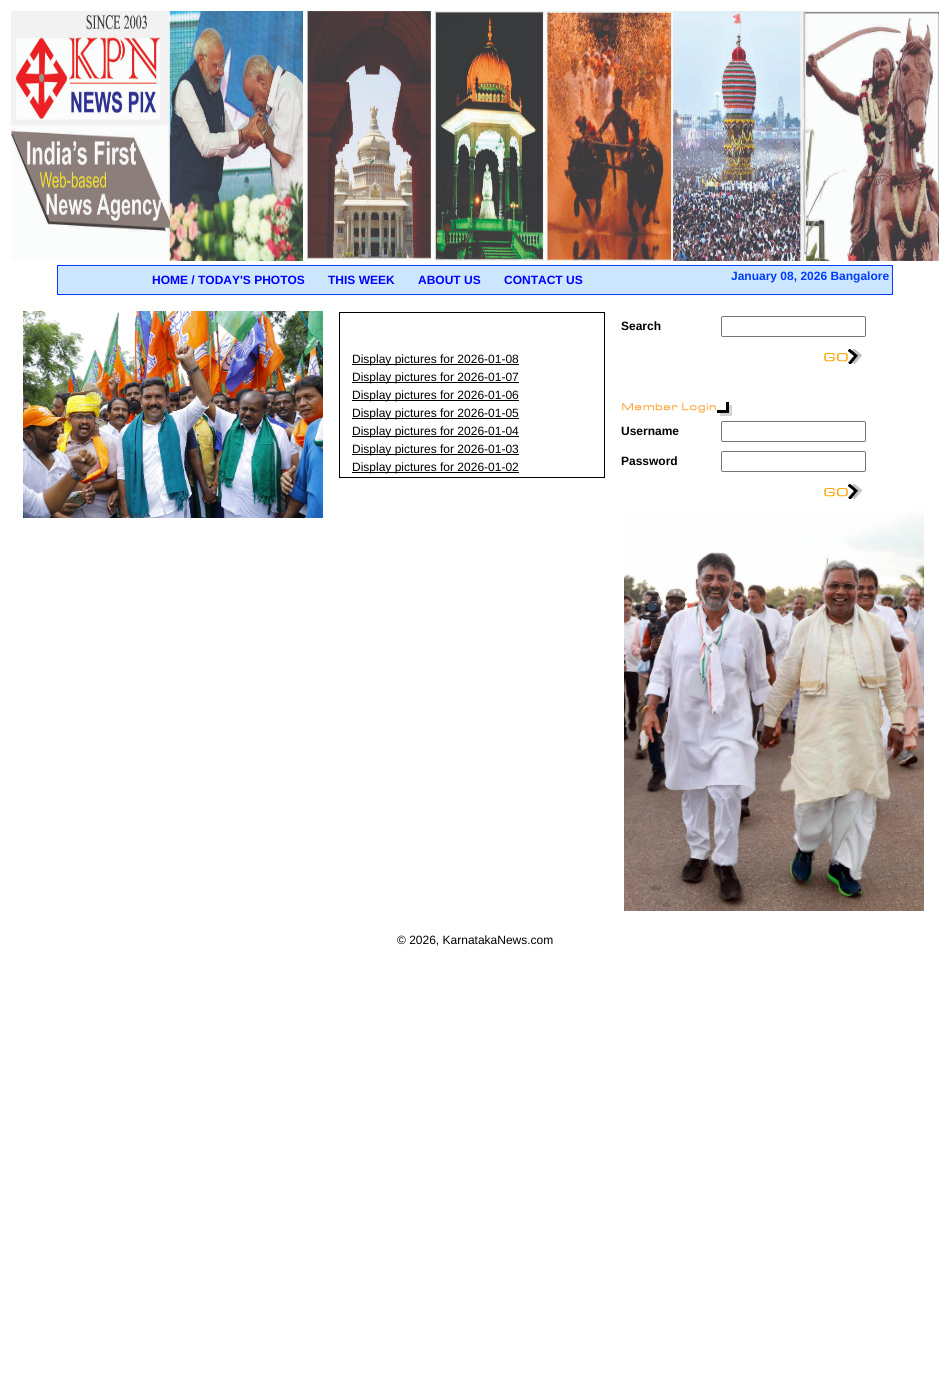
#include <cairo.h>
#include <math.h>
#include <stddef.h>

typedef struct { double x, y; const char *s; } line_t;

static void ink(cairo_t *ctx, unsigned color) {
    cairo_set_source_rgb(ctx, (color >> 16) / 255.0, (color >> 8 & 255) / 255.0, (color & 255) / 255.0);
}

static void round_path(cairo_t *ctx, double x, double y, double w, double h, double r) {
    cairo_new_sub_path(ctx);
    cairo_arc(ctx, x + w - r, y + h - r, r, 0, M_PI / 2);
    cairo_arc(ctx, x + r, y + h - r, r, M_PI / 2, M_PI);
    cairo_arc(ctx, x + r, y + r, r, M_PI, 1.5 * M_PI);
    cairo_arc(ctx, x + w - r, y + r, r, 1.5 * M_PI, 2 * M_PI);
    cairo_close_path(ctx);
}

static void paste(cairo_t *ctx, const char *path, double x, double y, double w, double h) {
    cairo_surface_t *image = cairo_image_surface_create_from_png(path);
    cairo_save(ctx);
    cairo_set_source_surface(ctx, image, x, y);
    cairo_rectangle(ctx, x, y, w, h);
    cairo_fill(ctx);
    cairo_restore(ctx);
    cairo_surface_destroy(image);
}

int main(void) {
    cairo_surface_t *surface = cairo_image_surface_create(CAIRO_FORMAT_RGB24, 950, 1375);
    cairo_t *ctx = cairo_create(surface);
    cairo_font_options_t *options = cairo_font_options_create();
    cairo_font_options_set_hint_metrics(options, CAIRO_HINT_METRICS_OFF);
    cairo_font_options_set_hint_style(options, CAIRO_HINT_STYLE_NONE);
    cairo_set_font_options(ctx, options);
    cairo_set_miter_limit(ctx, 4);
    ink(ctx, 0xFFFFFF);
    cairo_paint(ctx);
    paste(ctx, "media/1.png", 11, 11, 928, 250);
    ink(ctx, 0xCCE6FF);
    cairo_rectangle(ctx, 57.5, 265.5, 835, 29);
    cairo_fill_preserve(ctx);
    ink(ctx, 0x003CFC);
    cairo_set_line_width(ctx, 1);
    cairo_stroke(ctx);
    cairo_select_font_face(ctx, "Liberation Sans", CAIRO_FONT_SLANT_NORMAL, CAIRO_FONT_WEIGHT_BOLD);
    cairo_set_font_size(ctx, 12);
    ink(ctx, 0x0000FF);
    {
        static const line_t items[] = {
            {152, 284, "HOME / TODAY'S PHOTOS"},
            {328, 284, "THIS WEEK"},
            {418, 284, "ABOUT US"},
            {504, 284, "CONTACT US"},
        };
        for (size_t i = 0; i < sizeof items / sizeof *items; i++) {
            cairo_move_to(ctx, items[i].x, items[i].y);
            cairo_show_text(ctx, items[i].s);
        }
    }
    ink(ctx, 0x003CFC);
    cairo_move_to(ctx, 731, 280);
    cairo_show_text(ctx, "January 08, 2026 Bangalore");
    paste(ctx, "media/2.png", 23, 311, 300, 207);
    cairo_rectangle(ctx, 339.5, 312.5, 265, 165);
    ink(ctx, 0x000000);
    cairo_stroke(ctx);
    cairo_rectangle(ctx, 352, 364, 167, 1);
    cairo_fill(ctx);
    cairo_select_font_face(ctx, "Liberation Sans", CAIRO_FONT_SLANT_NORMAL, CAIRO_FONT_WEIGHT_NORMAL);
    cairo_move_to(ctx, 352, 363);
    cairo_show_text(ctx, "Display pictures for 2026-01-08");
    cairo_rectangle(ctx, 352, 382, 167, 1);
    cairo_fill(ctx);
    cairo_move_to(ctx, 352, 381);
    cairo_show_text(ctx, "Display pictures for 2026-01-07");
    cairo_rectangle(ctx, 352, 400, 167, 1);
    cairo_fill(ctx);
    cairo_move_to(ctx, 352, 399);
    cairo_show_text(ctx, "Display pictures for 2026-01-06");
    cairo_rectangle(ctx, 352, 418, 167, 1);
    cairo_fill(ctx);
    cairo_move_to(ctx, 352, 417);
    cairo_show_text(ctx, "Display pictures for 2026-01-05");
    cairo_rectangle(ctx, 352, 436, 167, 1);
    cairo_fill(ctx);
    cairo_move_to(ctx, 352, 435);
    cairo_show_text(ctx, "Display pictures for 2026-01-04");
    cairo_rectangle(ctx, 352, 454, 167, 1);
    cairo_fill(ctx);
    cairo_move_to(ctx, 352, 453);
    cairo_show_text(ctx, "Display pictures for 2026-01-03");
    cairo_rectangle(ctx, 352, 472, 167, 1);
    cairo_fill(ctx);
    cairo_move_to(ctx, 352, 471);
    cairo_show_text(ctx, "Display pictures for 2026-01-02");
    cairo_select_font_face(ctx, "Liberation Sans", CAIRO_FONT_SLANT_NORMAL, CAIRO_FONT_WEIGHT_BOLD);
    cairo_move_to(ctx, 621, 330);
    cairo_show_text(ctx, "Search");
    round_path(ctx, 721.5, 316.5, 144, 20, 1.5);
    ink(ctx, 0x767676);
    cairo_stroke(ctx);
    paste(ctx, "media/3.png", 824, 349, 38, 15);
    paste(ctx, "media/4.png", 622, 402, 110, 14);
    ink(ctx, 0x000000);
    cairo_move_to(ctx, 621, 435);
    cairo_show_text(ctx, "Username");
    round_path(ctx, 721.5, 421.5, 144, 20, 1.5);
    ink(ctx, 0x767676);
    cairo_stroke(ctx);
    ink(ctx, 0x000000);
    cairo_move_to(ctx, 621, 465);
    cairo_show_text(ctx, "Password");
    round_path(ctx, 721.5, 451.5, 144, 20, 1.5);
    ink(ctx, 0x767676);
    cairo_stroke(ctx);
    paste(ctx, "media/3.png", 824, 484, 38, 15);
    paste(ctx, "media/5.png", 624, 511, 300, 400);
    cairo_select_font_face(ctx, "Liberation Sans", CAIRO_FONT_SLANT_NORMAL, CAIRO_FONT_WEIGHT_NORMAL);
    ink(ctx, 0x000000);
    cairo_move_to(ctx, 397, 944);
    cairo_show_text(ctx, "© 2026, KarnatakaNews.com");
    cairo_surface_write_to_png(surface, "image.png");
    cairo_font_options_destroy(options);
    cairo_destroy(ctx);
    cairo_surface_destroy(surface);
    return 0;
}
